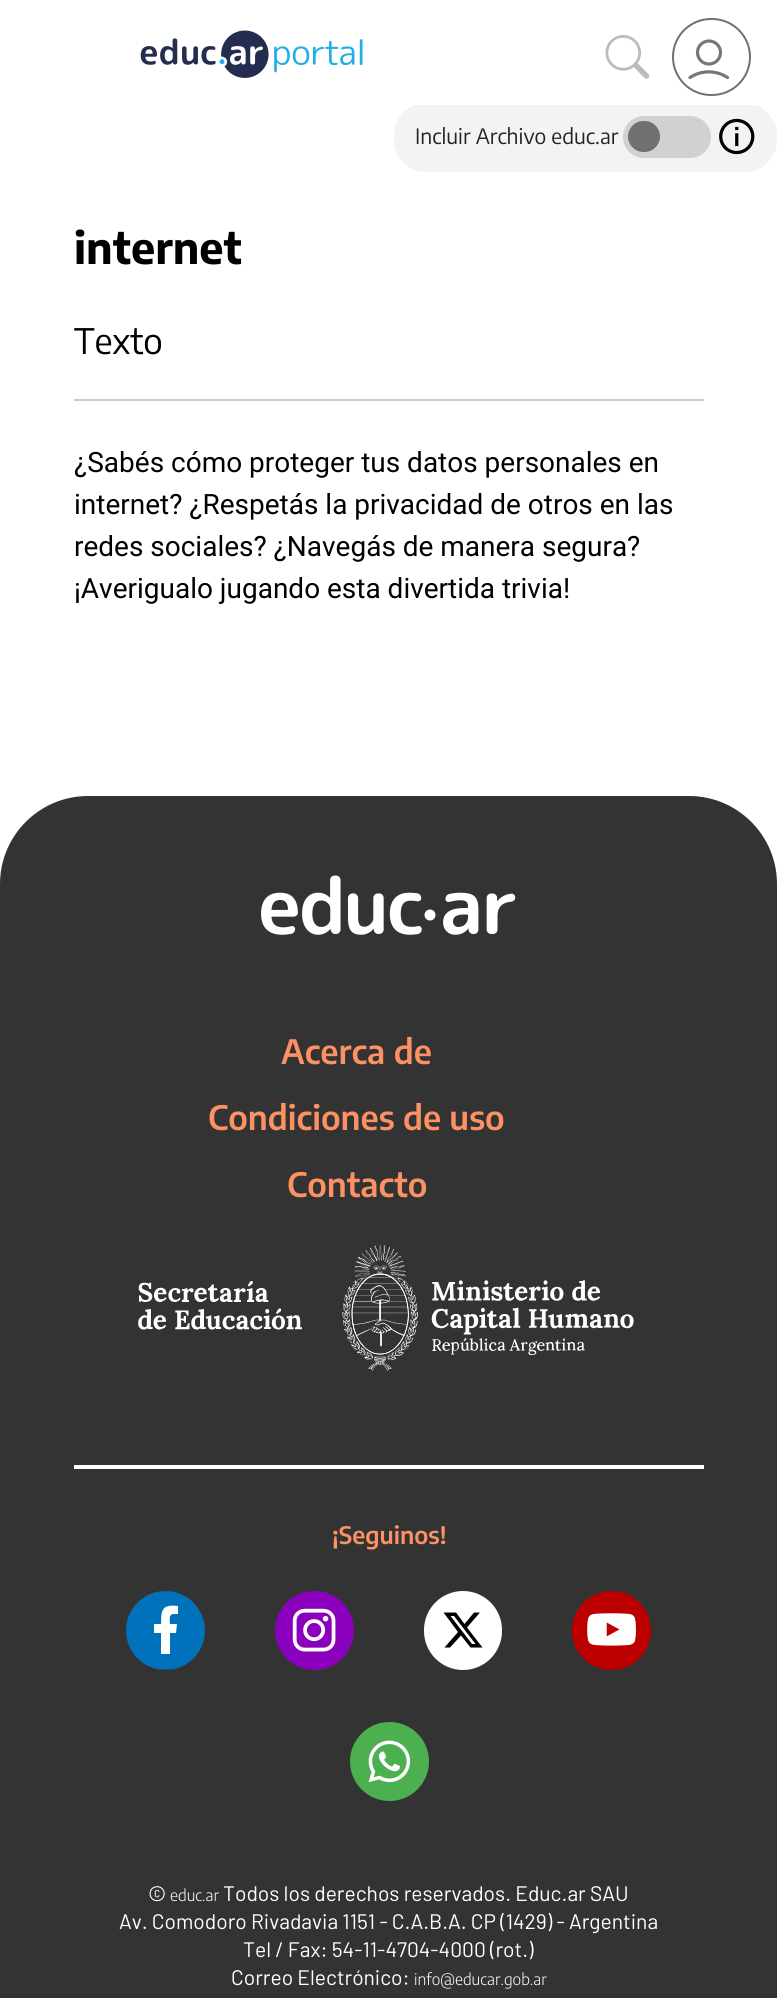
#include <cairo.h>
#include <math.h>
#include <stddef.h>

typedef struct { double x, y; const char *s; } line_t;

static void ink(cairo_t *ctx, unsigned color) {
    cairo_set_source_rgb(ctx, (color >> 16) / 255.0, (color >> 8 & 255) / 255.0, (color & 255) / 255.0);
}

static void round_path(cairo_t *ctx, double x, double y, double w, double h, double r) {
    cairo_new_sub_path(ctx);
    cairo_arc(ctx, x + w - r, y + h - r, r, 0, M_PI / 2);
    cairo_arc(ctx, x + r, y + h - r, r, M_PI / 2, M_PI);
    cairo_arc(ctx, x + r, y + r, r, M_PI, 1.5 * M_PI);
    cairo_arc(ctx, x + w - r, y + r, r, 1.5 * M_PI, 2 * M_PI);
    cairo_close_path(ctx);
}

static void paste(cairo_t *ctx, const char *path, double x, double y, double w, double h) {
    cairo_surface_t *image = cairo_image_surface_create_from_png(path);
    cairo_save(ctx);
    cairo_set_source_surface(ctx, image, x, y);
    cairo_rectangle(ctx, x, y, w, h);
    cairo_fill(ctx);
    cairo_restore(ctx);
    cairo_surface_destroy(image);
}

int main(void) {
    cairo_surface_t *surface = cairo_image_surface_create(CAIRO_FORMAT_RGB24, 777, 1998);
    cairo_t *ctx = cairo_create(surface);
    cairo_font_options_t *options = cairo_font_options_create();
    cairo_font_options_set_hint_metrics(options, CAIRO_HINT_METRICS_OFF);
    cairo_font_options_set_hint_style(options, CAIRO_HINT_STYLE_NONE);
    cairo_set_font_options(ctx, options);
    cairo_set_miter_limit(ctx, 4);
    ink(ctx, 0xFFFFFF);
    cairo_paint(ctx);
    ink(ctx, 0xF3F3F3);
    round_path(ctx, 394, 103, 383, 69, 32);
    cairo_fill(ctx);
    ink(ctx, 0xFFFFFF);
    cairo_rectangle(ctx, 416, 103, 339, 2);
    cairo_fill(ctx);
    paste(ctx, "media/1.png", 140, 30, 223, 48);
    paste(ctx, "media/2.png", 605, 35, 45, 44);
    round_path(ctx, 673, 19, 77, 76, 38);
    ink(ctx, 0x707070);
    cairo_stroke(ctx);
    cairo_arc(ctx, 709, 52.5, 11.5, 0, 2 * M_PI);
    ink(ctx, 0x767676);
    cairo_set_line_width(ctx, 3.2);
    cairo_stroke(ctx);
    cairo_new_path(ctx);
    cairo_move_to(ctx, 690, 77.5);
    cairo_curve_to(ctx, 701.5, 70, 716, 70, 727.5, 77.5);
    cairo_set_line_cap(ctx, CAIRO_LINE_CAP_ROUND);
    cairo_set_line_join(ctx, CAIRO_LINE_JOIN_ROUND);
    cairo_stroke(ctx);
    cairo_select_font_face(ctx, "Encode Sans Condensed", CAIRO_FONT_SLANT_NORMAL, CAIRO_FONT_WEIGHT_NORMAL);
    cairo_set_font_size(ctx, 21);
    ink(ctx, 0x212529);
    cairo_move_to(ctx, 415, 144);
    cairo_show_text(ctx, "Incluir Archivo educ.ar");
    ink(ctx, 0xD1D1D1);
    round_path(ctx, 623, 116, 88, 42, 21);
    cairo_fill(ctx);
    ink(ctx, 0x707070);
    round_path(ctx, 628, 121, 32, 31, 15.5);
    cairo_fill(ctx);
    paste(ctx, "media/3.png", 719, 118, 36, 37);
    cairo_select_font_face(ctx, "Encode Sans Condensed", CAIRO_FONT_SLANT_NORMAL, CAIRO_FONT_WEIGHT_BOLD);
    cairo_set_font_size(ctx, 43.5);
    ink(ctx, 0x000000);
    cairo_move_to(ctx, 74, 264);
    cairo_show_text(ctx, "internet");
    ink(ctx, 0xCCCCCC);
    cairo_rectangle(ctx, 74, 399, 630, 2);
    cairo_fill(ctx);
    cairo_select_font_face(ctx, "Encode Sans Condensed", CAIRO_FONT_SLANT_NORMAL, CAIRO_FONT_WEIGHT_NORMAL);
    cairo_set_font_size(ctx, 35);
    ink(ctx, 0x000000);
    cairo_move_to(ctx, 74, 354);
    cairo_show_text(ctx, "Texto");
    cairo_select_font_face(ctx, "Roboto", CAIRO_FONT_SLANT_NORMAL, CAIRO_FONT_WEIGHT_NORMAL);
    cairo_set_font_size(ctx, 28);
    {
        static const line_t items[] = {
            {74, 472, "¿Sabés cómo proteger tus datos personales en"},
            {74, 514, "internet? ¿Respetás la privacidad de otros en las"},
            {74, 556, "redes sociales? ¿Navegás de manera segura?"},
            {74, 598, "¡Averigualo jugando esta divertida trivia!"},
        };
        for (size_t i = 0; i < sizeof items / sizeof *items; i++) {
            cairo_move_to(ctx, items[i].x, items[i].y);
            cairo_show_text(ctx, items[i].s);
        }
    }
    ink(ctx, 0x333333);
    cairo_new_path(ctx);
    cairo_move_to(ctx, 88, 796);
    cairo_line_to(ctx, 689, 796);
    cairo_curve_to(ctx, 737.5, 796, 777, 835.5, 777, 884);
    cairo_line_to(ctx, 777, 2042);
    cairo_line_to(ctx, 0, 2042);
    cairo_line_to(ctx, 0, 884);
    cairo_curve_to(ctx, 0, 835.5, 39.5, 796, 88, 796);
    cairo_close_path(ctx);
    cairo_fill(ctx);
    paste(ctx, "media/4.png", 261, 875, 255, 60);
    cairo_select_font_face(ctx, "Encode Sans Condensed SemiBold", CAIRO_FONT_SLANT_NORMAL, CAIRO_FONT_WEIGHT_NORMAL);
    cairo_set_font_size(ctx, 33.5);
    ink(ctx, 0xFC9163);
    {
        static const line_t items[] = {
            {281, 1064, "Acerca de"},
            {208, 1130, "Condiciones de uso"},
            {287, 1197, "Contacto"},
        };
        for (size_t i = 0; i < sizeof items / sizeof *items; i++) {
            cairo_move_to(ctx, items[i].x, items[i].y);
            cairo_show_text(ctx, items[i].s);
        }
    }
    paste(ctx, "media/5.png", 138, 1245, 496, 126);
    ink(ctx, 0xFFFFFF);
    cairo_rectangle(ctx, 74, 1465, 630, 4);
    cairo_fill(ctx);
    cairo_set_font_size(ctx, 24);
    ink(ctx, 0xFC9163);
    cairo_move_to(ctx, 332, 1544);
    cairo_show_text(ctx, "¡Seguinos!");
    ink(ctx, 0x0072BC);
    cairo_new_path(ctx);
    cairo_arc(ctx, 165.5, 1630.5, 39.5, 0, 2 * M_PI);
    cairo_fill(ctx);
    cairo_save(ctx);
    round_path(ctx, 126, 1591, 79, 79, 39.5);
    cairo_clip(ctx);
    cairo_new_path(ctx);
    cairo_move_to(ctx, 126, 1591);
    cairo_line_to(ctx, 205, 1591);
    cairo_line_to(ctx, 205, 1669.5);
    cairo_line_to(ctx, 126, 1669.5);
    cairo_close_path(ctx);
    ink(ctx, 0x000000);
    cairo_set_line_width(ctx, 0.2);
    cairo_set_line_cap(ctx, CAIRO_LINE_CAP_BUTT);
    cairo_set_line_join(ctx, CAIRO_LINE_JOIN_MITER);
    cairo_stroke(ctx);
    cairo_restore(ctx);
    ink(ctx, 0xFFFFFF);
    cairo_new_path(ctx);
    cairo_move_to(ctx, 174, 1614);
    cairo_line_to(ctx, 178, 1614);
    cairo_line_to(ctx, 178, 1606);
    cairo_curve_to(ctx, 162, 1604, 161, 1610, 161, 1624);
    cairo_line_to(ctx, 154, 1624);
    cairo_line_to(ctx, 154, 1633);
    cairo_line_to(ctx, 161, 1633);
    cairo_line_to(ctx, 161, 1654);
    cairo_line_to(ctx, 170, 1654);
    cairo_line_to(ctx, 170, 1633);
    cairo_line_to(ctx, 176, 1633);
    cairo_line_to(ctx, 177, 1624);
    cairo_line_to(ctx, 170, 1624);
    cairo_curve_to(ctx, 170, 1620, 168, 1614, 174, 1614);
    cairo_close_path(ctx);
    cairo_fill(ctx);
    paste(ctx, "media/6.png", 275, 1591, 79, 79);
    round_path(ctx, 424, 1591, 78, 79, 39);
    cairo_fill(ctx);
    ink(ctx, 0x000000);
    cairo_new_path(ctx);
    cairo_move_to(ctx, 474, 1612.5);
    cairo_line_to(ctx, 480, 1612.5);
    cairo_line_to(ctx, 467, 1627.5);
    cairo_line_to(ctx, 482.5, 1647.5);
    cairo_line_to(ctx, 470.5, 1647.5);
    cairo_line_to(ctx, 461, 1635.5);
    cairo_line_to(ctx, 450, 1647.5);
    cairo_line_to(ctx, 444.5, 1647.5);
    cairo_line_to(ctx, 458, 1632);
    cairo_line_to(ctx, 443.5, 1612.5);
    cairo_line_to(ctx, 456, 1612.5);
    cairo_line_to(ctx, 464.5, 1624);
    cairo_close_path(ctx);
    cairo_move_to(ctx, 472, 1644);
    cairo_line_to(ctx, 475.5, 1644);
    cairo_line_to(ctx, 454, 1616);
    cairo_line_to(ctx, 450.5, 1616);
    cairo_close_path(ctx);
    cairo_fill(ctx);
    paste(ctx, "media/7.png", 572, 1591, 79, 79);
    paste(ctx, "media/8.png", 350, 1722, 79, 79);
    cairo_select_font_face(ctx, "Barlow", CAIRO_FONT_SLANT_NORMAL, CAIRO_FONT_WEIGHT_NORMAL);
    cairo_set_font_size(ctx, 21);
    ink(ctx, 0xFFFFFF);
    cairo_move_to(ctx, 148, 1901);
    cairo_show_text(ctx, "©");
    cairo_select_font_face(ctx, "Encode Sans Condensed Light", CAIRO_FONT_SLANT_NORMAL, CAIRO_FONT_WEIGHT_NORMAL);
    cairo_set_font_size(ctx, 15.75);
    cairo_move_to(ctx, 170, 1901);
    cairo_show_text(ctx, "educ.ar");
    cairo_select_font_face(ctx, "Barlow", CAIRO_FONT_SLANT_NORMAL, CAIRO_FONT_WEIGHT_NORMAL);
    cairo_set_font_size(ctx, 21);
    {
        static const line_t items[] = {
            {223, 1901, "Todos los derechos reservados. Educ.ar SAU"},
            {119, 1929, "Av. Comodoro Rivadavia 1151 - C.A.B.A. CP (1429) - Argentina"},
            {243, 1957, "Tel / Fax: 54-11-4704-4000 (rot.)"},
            {231, 1985, "Correo Electrónico:"},
        };
        for (size_t i = 0; i < sizeof items / sizeof *items; i++) {
            cairo_move_to(ctx, items[i].x, items[i].y);
            cairo_show_text(ctx, items[i].s);
        }
    }
    cairo_select_font_face(ctx, "Encode Sans Condensed Light", CAIRO_FONT_SLANT_NORMAL, CAIRO_FONT_WEIGHT_NORMAL);
    cairo_set_font_size(ctx, 15.75);
    cairo_move_to(ctx, 414, 1985);
    cairo_show_text(ctx, "info@educar.gob.ar");
    cairo_surface_write_to_png(surface, "image.png");
    cairo_font_options_destroy(options);
    cairo_destroy(ctx);
    cairo_surface_destroy(surface);
    return 0;
}
